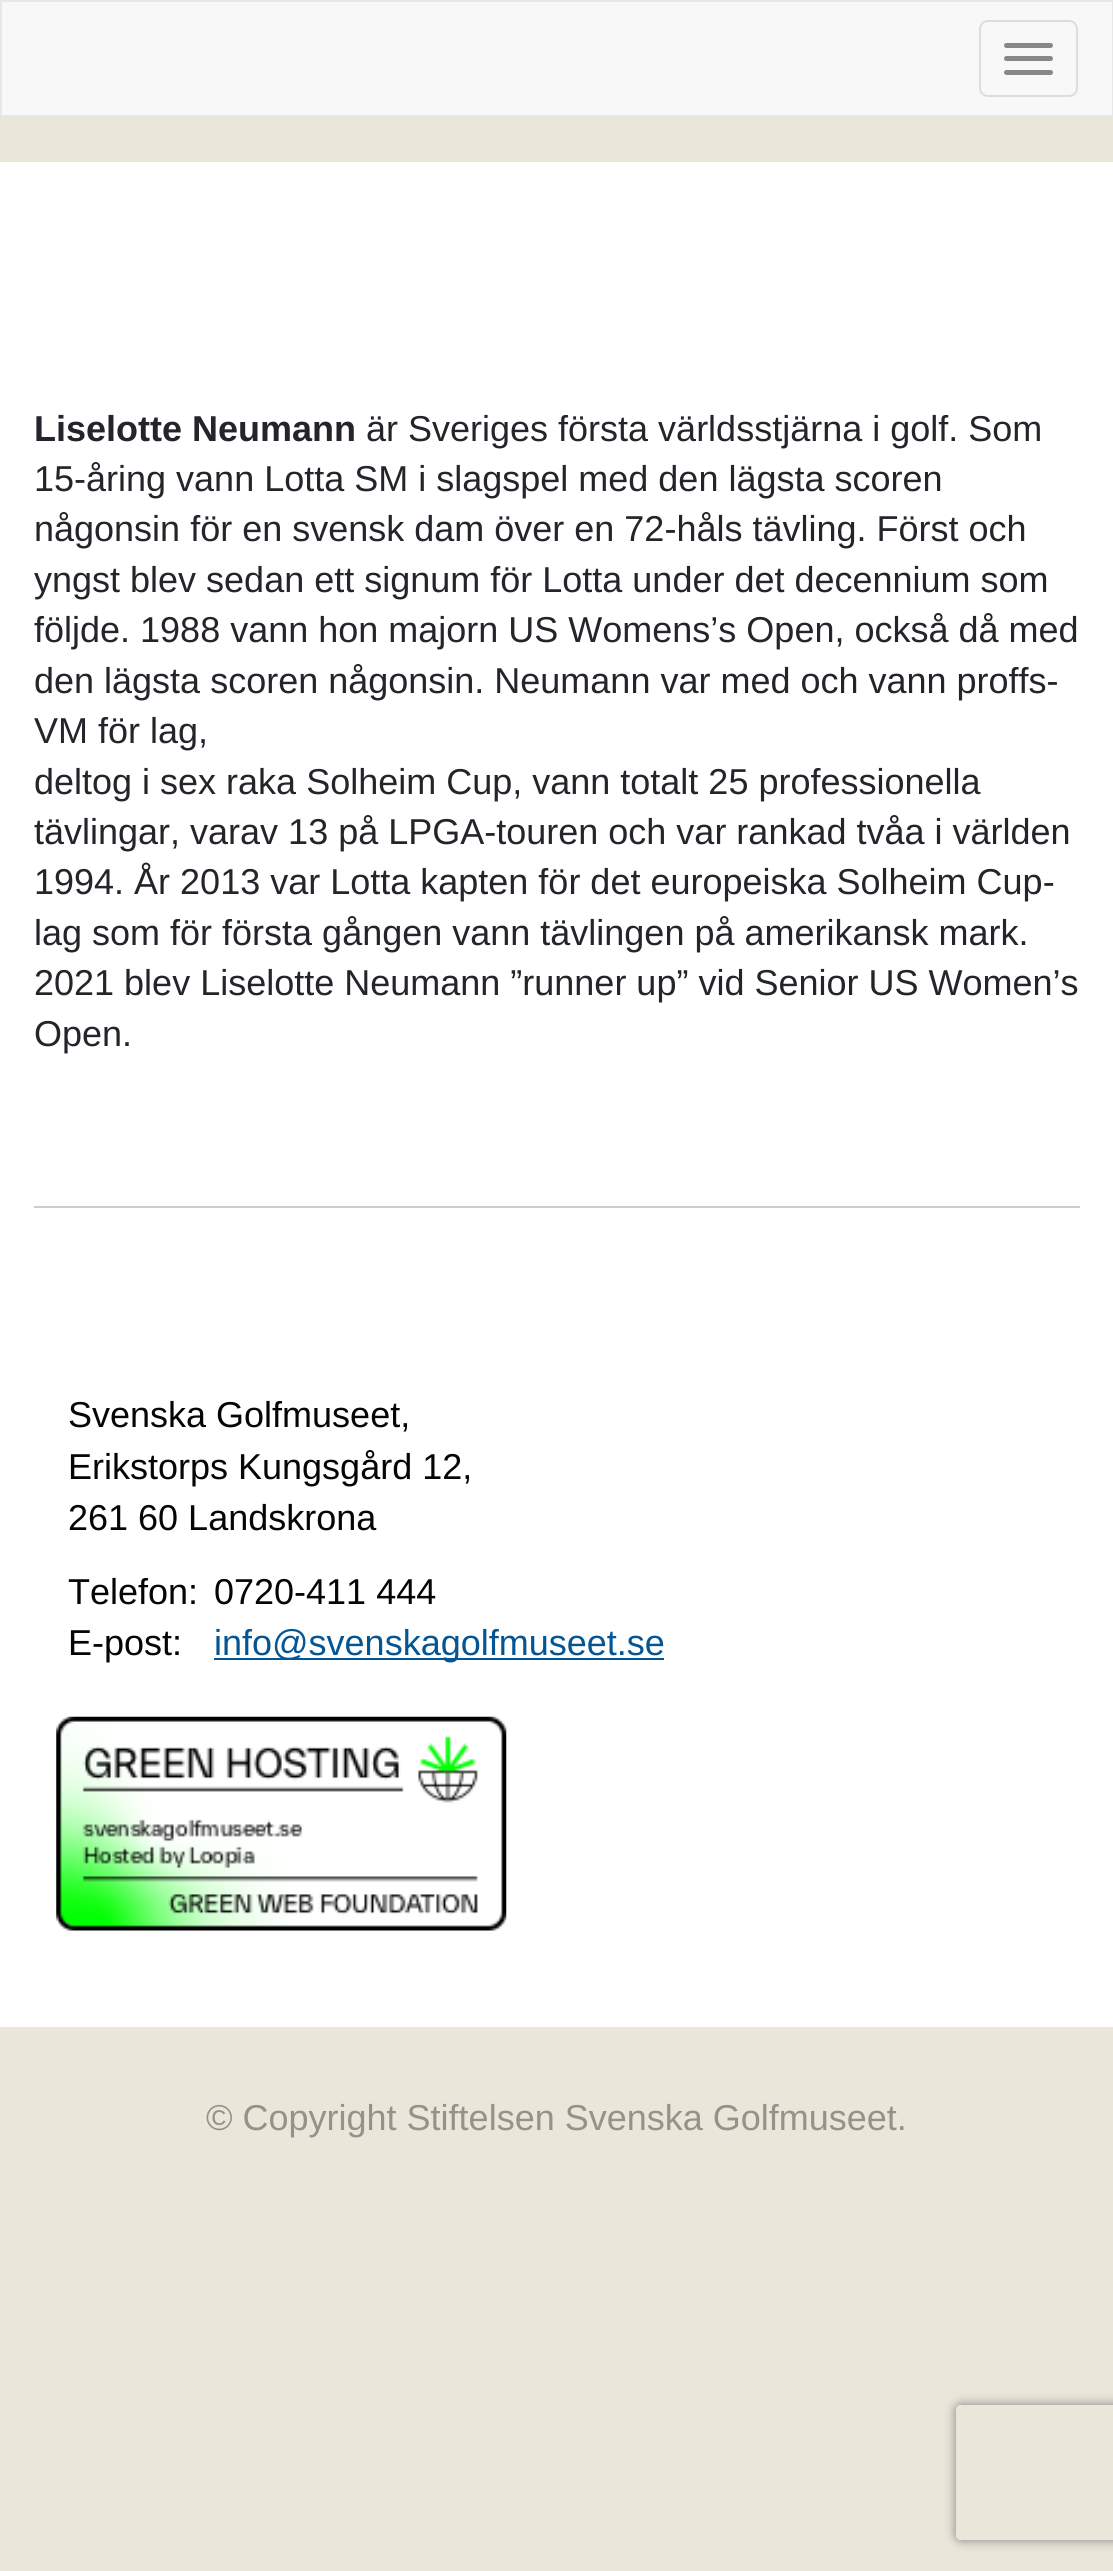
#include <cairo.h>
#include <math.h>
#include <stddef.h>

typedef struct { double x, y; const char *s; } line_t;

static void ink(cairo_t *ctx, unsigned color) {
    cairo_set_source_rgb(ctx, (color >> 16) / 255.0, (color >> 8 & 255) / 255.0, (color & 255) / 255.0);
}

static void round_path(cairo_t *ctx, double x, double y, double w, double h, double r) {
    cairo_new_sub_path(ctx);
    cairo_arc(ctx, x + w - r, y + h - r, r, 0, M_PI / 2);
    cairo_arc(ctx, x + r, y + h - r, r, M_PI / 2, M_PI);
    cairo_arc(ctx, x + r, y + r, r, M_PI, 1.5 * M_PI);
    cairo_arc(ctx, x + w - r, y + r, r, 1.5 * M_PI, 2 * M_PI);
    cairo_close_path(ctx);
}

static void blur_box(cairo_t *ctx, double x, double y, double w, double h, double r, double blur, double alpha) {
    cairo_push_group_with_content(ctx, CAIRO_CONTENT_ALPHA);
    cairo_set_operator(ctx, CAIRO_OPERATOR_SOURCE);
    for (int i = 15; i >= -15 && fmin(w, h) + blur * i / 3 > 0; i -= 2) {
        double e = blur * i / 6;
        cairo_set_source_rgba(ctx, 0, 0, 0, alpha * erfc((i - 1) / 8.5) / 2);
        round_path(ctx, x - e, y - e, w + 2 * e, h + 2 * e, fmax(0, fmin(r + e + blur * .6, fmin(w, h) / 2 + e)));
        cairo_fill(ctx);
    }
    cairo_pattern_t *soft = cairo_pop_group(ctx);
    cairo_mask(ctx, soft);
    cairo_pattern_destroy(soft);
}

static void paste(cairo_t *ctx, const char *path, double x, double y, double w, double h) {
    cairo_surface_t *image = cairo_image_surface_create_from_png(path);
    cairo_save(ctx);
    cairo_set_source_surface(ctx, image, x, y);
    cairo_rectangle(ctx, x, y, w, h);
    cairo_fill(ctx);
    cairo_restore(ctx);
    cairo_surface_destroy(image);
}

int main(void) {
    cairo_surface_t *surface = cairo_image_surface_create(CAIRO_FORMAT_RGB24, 1113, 2571);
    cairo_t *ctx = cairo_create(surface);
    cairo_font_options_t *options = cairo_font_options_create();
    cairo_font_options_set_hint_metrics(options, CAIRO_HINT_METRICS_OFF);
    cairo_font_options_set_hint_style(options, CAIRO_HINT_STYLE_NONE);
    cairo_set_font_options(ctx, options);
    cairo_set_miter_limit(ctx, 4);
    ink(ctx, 0xEAE6D9);
    cairo_paint(ctx);
    ink(ctx, 0xF8F8F8);
    cairo_rectangle(ctx, 1, 1, 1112, 115);
    cairo_fill_preserve(ctx);
    ink(ctx, 0xE7E7E7);
    cairo_stroke(ctx);
    round_path(ctx, 980, 21, 97, 75, 8);
    ink(ctx, 0xDDDDDD);
    cairo_stroke(ctx);
    ink(ctx, 0x888888);
    round_path(ctx, 1004, 43, 49, 5, 2.5);
    cairo_fill(ctx);
    round_path(ctx, 1004, 56, 49, 5, 2.5);
    cairo_fill(ctx);
    round_path(ctx, 1004, 70, 49, 5, 2.5);
    cairo_fill(ctx);
    ink(ctx, 0xFFFFFF);
    cairo_rectangle(ctx, 0, 162, 1113, 1865);
    cairo_fill(ctx);
    cairo_select_font_face(ctx, "Liberation Sans", CAIRO_FONT_SLANT_NORMAL, CAIRO_FONT_WEIGHT_BOLD);
    cairo_set_font_size(ctx, 36);
    ink(ctx, 0x26242A);
    cairo_move_to(ctx, 34, 441);
    cairo_show_text(ctx, "Liselotte Neumann");
    cairo_select_font_face(ctx, "Liberation Sans", CAIRO_FONT_SLANT_NORMAL, CAIRO_FONT_WEIGHT_NORMAL);
    {
        static const line_t items[] = {
            {366, 441, "är Sveriges första världsstjärna i golf. Som"},
            {34, 491, "15-åring vann Lotta SM i slagspel med den lägsta scoren"},
            {34, 541, "någonsin för en svensk dam över en 72-håls tävling. Först och"},
            {34, 592, "yngst blev sedan ett signum för Lotta under det decennium som"},
            {34, 642, "följde. 1988 vann hon majorn US Womens’s Open, också då med"},
            {34, 693, "den lägsta scoren någonsin. Neumann var med och vann proffs-"},
            {34, 743, "VM för lag,"},
            {34, 794, "deltog i sex raka Solheim Cup, vann totalt 25 professionella"},
            {34, 844, "tävlingar, varav 13 på LPGA-touren och var rankad tvåa i världen"},
            {34, 894, "1994. År 2013 var Lotta kapten för det europeiska Solheim Cup-"},
            {34, 945, "lag som för första gången vann tävlingen på amerikansk mark."},
            {34, 995, "2021 blev Liselotte Neumann ”runner up” vid Senior US Women’s"},
            {34, 1046, "Open."},
        };
        for (size_t i = 0; i < sizeof items / sizeof *items; i++) {
            cairo_move_to(ctx, items[i].x, items[i].y);
            cairo_show_text(ctx, items[i].s);
        }
    }
    ink(ctx, 0xCCCCCC);
    cairo_rectangle(ctx, 34, 1206, 1046, 2);
    cairo_fill(ctx);
    ink(ctx, 0x050505);
    {
        static const line_t items[] = {
            {68, 1427, "Svenska Golfmuseet,"},
            {68, 1479, "Erikstorps Kungsgård 12,"},
            {68, 1530, "261 60 Landskrona"},
            {68, 1604, "Telefon:"},
            {214, 1604, "0720-411 444"},
            {68, 1655, "E-post:"},
        };
        for (size_t i = 0; i < sizeof items / sizeof *items; i++) {
            cairo_move_to(ctx, items[i].x, items[i].y);
            cairo_show_text(ctx, items[i].s);
        }
    }
    ink(ctx, 0x045594);
    cairo_rectangle(ctx, 214, 1658, 450, 2);
    cairo_fill(ctx);
    cairo_move_to(ctx, 214, 1655);
    cairo_show_text(ctx, "info@svenskagolfmuseet.se");
    paste(ctx, "media/1.png", 56, 1716, 451, 215);
    ink(ctx, 0x95928A);
    cairo_move_to(ctx, 206, 2130);
    cairo_show_text(ctx, "© Copyright Stiftelsen Svenska Golfmuseet.");
    cairo_save(ctx);
    cairo_set_fill_rule(ctx, CAIRO_FILL_RULE_EVEN_ODD);
    cairo_new_path(ctx);
    cairo_move_to(ctx, 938, 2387);
    cairo_line_to(ctx, 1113, 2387);
    cairo_line_to(ctx, 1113, 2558);
    cairo_line_to(ctx, 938, 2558);
    cairo_close_path(ctx);
    cairo_move_to(ctx, 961, 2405);
    cairo_line_to(ctx, 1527, 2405);
    cairo_curve_to(ctx, 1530, 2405, 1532, 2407, 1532, 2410);
    cairo_line_to(ctx, 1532, 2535);
    cairo_curve_to(ctx, 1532, 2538, 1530, 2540, 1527, 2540);
    cairo_line_to(ctx, 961, 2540);
    cairo_curve_to(ctx, 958, 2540, 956, 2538, 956, 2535);
    cairo_line_to(ctx, 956, 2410);
    cairo_curve_to(ctx, 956, 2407, 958, 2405, 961, 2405);
    cairo_close_path(ctx);
    cairo_clip(ctx);
    ink(ctx, 0x808080);
    blur_box(ctx, 956, 2405, 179, 135, 5, 5.5, 1);
    cairo_restore(ctx);
    cairo_surface_write_to_png(surface, "image.png");
    cairo_font_options_destroy(options);
    cairo_destroy(ctx);
    cairo_surface_destroy(surface);
    return 0;
}
